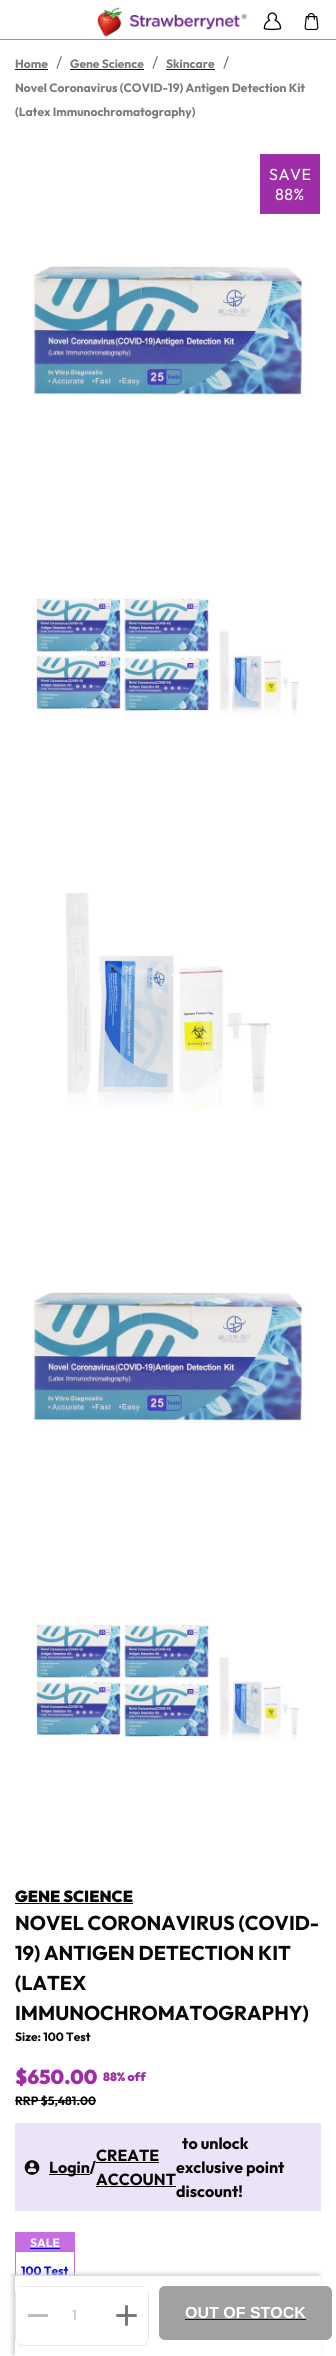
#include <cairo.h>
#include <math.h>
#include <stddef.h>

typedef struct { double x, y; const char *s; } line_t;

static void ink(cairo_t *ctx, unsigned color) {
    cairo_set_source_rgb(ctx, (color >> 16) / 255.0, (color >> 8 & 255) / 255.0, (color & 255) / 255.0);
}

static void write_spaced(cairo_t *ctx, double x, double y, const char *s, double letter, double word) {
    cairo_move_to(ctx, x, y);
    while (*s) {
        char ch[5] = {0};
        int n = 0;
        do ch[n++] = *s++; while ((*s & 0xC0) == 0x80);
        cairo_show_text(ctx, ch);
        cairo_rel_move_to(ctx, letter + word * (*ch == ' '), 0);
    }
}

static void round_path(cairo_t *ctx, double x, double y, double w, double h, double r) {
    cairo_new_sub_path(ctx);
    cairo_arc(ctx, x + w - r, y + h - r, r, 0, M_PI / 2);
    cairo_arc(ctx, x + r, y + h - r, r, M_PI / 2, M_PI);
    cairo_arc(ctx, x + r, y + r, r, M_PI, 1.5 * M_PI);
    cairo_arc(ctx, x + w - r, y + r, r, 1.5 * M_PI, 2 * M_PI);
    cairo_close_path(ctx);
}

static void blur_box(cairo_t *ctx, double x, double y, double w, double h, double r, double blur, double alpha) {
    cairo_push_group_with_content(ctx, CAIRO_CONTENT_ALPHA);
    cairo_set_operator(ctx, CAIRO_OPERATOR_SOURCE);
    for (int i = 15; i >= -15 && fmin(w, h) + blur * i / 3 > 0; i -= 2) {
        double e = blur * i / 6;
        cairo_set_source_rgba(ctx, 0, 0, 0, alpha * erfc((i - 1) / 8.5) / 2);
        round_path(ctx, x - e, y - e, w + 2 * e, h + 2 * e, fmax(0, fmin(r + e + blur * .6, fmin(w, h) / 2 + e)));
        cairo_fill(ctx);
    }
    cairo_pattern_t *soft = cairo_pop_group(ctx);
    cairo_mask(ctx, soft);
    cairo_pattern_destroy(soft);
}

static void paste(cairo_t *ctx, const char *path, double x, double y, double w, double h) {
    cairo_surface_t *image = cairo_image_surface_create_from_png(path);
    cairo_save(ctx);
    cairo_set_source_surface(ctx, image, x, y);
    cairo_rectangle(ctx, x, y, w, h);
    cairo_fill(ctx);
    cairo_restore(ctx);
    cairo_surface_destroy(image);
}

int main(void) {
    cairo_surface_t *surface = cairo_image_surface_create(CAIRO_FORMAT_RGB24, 336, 2356);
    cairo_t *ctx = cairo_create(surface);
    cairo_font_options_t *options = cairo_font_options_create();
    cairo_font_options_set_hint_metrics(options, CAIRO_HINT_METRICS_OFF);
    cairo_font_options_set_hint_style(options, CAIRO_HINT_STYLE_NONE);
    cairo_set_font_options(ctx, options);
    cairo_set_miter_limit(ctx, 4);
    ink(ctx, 0xFFFFFF);
    cairo_paint(ctx);
    ink(ctx, 0x979797);
    cairo_rectangle(ctx, 0, 39, 336, 1);
    cairo_fill(ctx);
    paste(ctx, "media/1.png", 97, 7, 150, 30);
    paste(ctx, "media/2.png", 263, 12, 19, 19);
    paste(ctx, "media/3.png", 304, 13, 15, 18);
    cairo_select_font_face(ctx, "Outfit", CAIRO_FONT_SLANT_NORMAL, CAIRO_FONT_WEIGHT_BOLD);
    cairo_set_font_size(ctx, 12);
    ink(ctx, 0x797979);
    cairo_move_to(ctx, 15, 68);
    cairo_show_text(ctx, "Home");
    ink(ctx, 0x0000EE);
    cairo_rectangle(ctx, 15, 69, 33, 1);
    cairo_fill(ctx);
    cairo_select_font_face(ctx, "Outfit", CAIRO_FONT_SLANT_NORMAL, CAIRO_FONT_WEIGHT_NORMAL);
    cairo_set_font_size(ctx, 16);
    ink(ctx, 0x797979);
    cairo_move_to(ctx, 56, 68);
    cairo_show_text(ctx, "/");
    cairo_select_font_face(ctx, "Outfit", CAIRO_FONT_SLANT_NORMAL, CAIRO_FONT_WEIGHT_BOLD);
    cairo_set_font_size(ctx, 12);
    cairo_move_to(ctx, 70, 68);
    cairo_show_text(ctx, "Gene Science");
    ink(ctx, 0x0000EE);
    cairo_rectangle(ctx, 70, 69, 74, 1);
    cairo_fill(ctx);
    cairo_select_font_face(ctx, "Outfit", CAIRO_FONT_SLANT_NORMAL, CAIRO_FONT_WEIGHT_NORMAL);
    cairo_set_font_size(ctx, 16);
    ink(ctx, 0x797979);
    cairo_move_to(ctx, 152, 68);
    cairo_show_text(ctx, "/");
    cairo_select_font_face(ctx, "Outfit", CAIRO_FONT_SLANT_NORMAL, CAIRO_FONT_WEIGHT_BOLD);
    cairo_set_font_size(ctx, 12);
    cairo_move_to(ctx, 166, 68);
    cairo_show_text(ctx, "Skincare");
    ink(ctx, 0x0000EE);
    cairo_rectangle(ctx, 166, 69, 49, 1);
    cairo_fill(ctx);
    cairo_select_font_face(ctx, "Outfit", CAIRO_FONT_SLANT_NORMAL, CAIRO_FONT_WEIGHT_NORMAL);
    cairo_set_font_size(ctx, 16);
    ink(ctx, 0x797979);
    cairo_move_to(ctx, 223, 68);
    cairo_show_text(ctx, "/");
    cairo_select_font_face(ctx, "Outfit", CAIRO_FONT_SLANT_NORMAL, CAIRO_FONT_WEIGHT_BOLD);
    cairo_set_font_size(ctx, 12);
    cairo_move_to(ctx, 15, 92);
    cairo_show_text(ctx, "Novel Coronavirus (COVID-19) Antigen Detection Kit");
    cairo_move_to(ctx, 15, 116);
    cairo_show_text(ctx, "(Latex Immunochromatography)");
    ink(ctx, 0x9E2EA8);
    cairo_rectangle(ctx, 260, 154, 60, 60);
    cairo_fill(ctx);
    cairo_select_font_face(ctx, "Outfit", CAIRO_FONT_SLANT_NORMAL, CAIRO_FONT_WEIGHT_NORMAL);
    cairo_set_font_size(ctx, 16);
    ink(ctx, 0xFFFFFF);
    write_spaced(ctx, 269, 180, "SAVE", 0.5, 0);
    write_spaced(ctx, 275, 200, "88%", 0.5, 0);
    paste(ctx, "media/4.png", 32, 266, 273, 133);
    paste(ctx, "media/5.png", 32, 597, 268, 119);
    paste(ctx, "media/6.png", 65, 893, 206, 218);
    paste(ctx, "media/4.png", 32, 1292, 273, 133);
    paste(ctx, "media/5.png", 32, 1623, 268, 119);
    cairo_select_font_face(ctx, "Outfit Black", CAIRO_FONT_SLANT_NORMAL, CAIRO_FONT_WEIGHT_NORMAL);
    ink(ctx, 0x080808);
    cairo_move_to(ctx, 15, 1902);
    cairo_show_text(ctx, "GENE SCIENCE");
    cairo_rectangle(ctx, 15, 1903, 118, 1);
    cairo_fill(ctx);
    cairo_select_font_face(ctx, "Outfit", CAIRO_FONT_SLANT_NORMAL, CAIRO_FONT_WEIGHT_BOLD);
    cairo_set_font_size(ctx, 20);
    {
        static const line_t items[] = {
            {15, 1930, "NOVEL CORONAVIRUS (COVID-"},
            {15, 1960, "19) ANTIGEN DETECTION KIT"},
            {15, 1990, "(LATEX"},
            {15, 2020, "IMMUNOCHROMATOGRAPHY)"},
        };
        for (size_t i = 0; i < sizeof items / sizeof *items; i++) {
            cairo_move_to(ctx, items[i].x, items[i].y);
            cairo_show_text(ctx, items[i].s);
        }
    }
    cairo_set_font_size(ctx, 12);
    cairo_move_to(ctx, 15, 2041);
    cairo_show_text(ctx, "Size: 100 Test");
    cairo_select_font_face(ctx, "Outfit Black", CAIRO_FONT_SLANT_NORMAL, CAIRO_FONT_WEIGHT_NORMAL);
    cairo_set_font_size(ctx, 20);
    ink(ctx, 0x9E2EA8);
    cairo_move_to(ctx, 15, 2084);
    cairo_show_text(ctx, "$650.00");
    cairo_set_font_size(ctx, 12);
    cairo_move_to(ctx, 103, 2081);
    cairo_show_text(ctx, "88% off");
    cairo_select_font_face(ctx, "Outfit", CAIRO_FONT_SLANT_NORMAL, CAIRO_FONT_WEIGHT_BOLD);
    ink(ctx, 0x080808);
    cairo_move_to(ctx, 15, 2105);
    cairo_show_text(ctx, "RRP $5,481.00");
    cairo_rectangle(ctx, 15, 2100, 81, 1);
    cairo_fill(ctx);
    ink(ctx, 0xEDE3F8);
    cairo_rectangle(ctx, 15, 2123, 306, 88);
    cairo_fill(ctx);
    cairo_set_font_size(ctx, 16);
    ink(ctx, 0x080808);
    cairo_move_to(ctx, 182, 2149);
    cairo_show_text(ctx, "to unlock");
    paste(ctx, "media/7.png", 24, 2160, 16, 15);
    cairo_rectangle(ctx, 49, 2174, 41, 1);
    cairo_fill(ctx);
    cairo_move_to(ctx, 49, 2173);
    cairo_show_text(ctx, "Login/");
    cairo_move_to(ctx, 96, 2161);
    cairo_show_text(ctx, "CREATE");
    cairo_rectangle(ctx, 96, 2162, 63, 1);
    cairo_fill(ctx);
    cairo_move_to(ctx, 96, 2185);
    cairo_show_text(ctx, "ACCOUNT");
    cairo_rectangle(ctx, 96, 2186, 80, 1);
    cairo_fill(ctx);
    cairo_move_to(ctx, 176, 2173);
    cairo_show_text(ctx, "exclusive point");
    cairo_move_to(ctx, 176, 2197);
    cairo_show_text(ctx, "discount!");
    cairo_rectangle(ctx, 15.5, 2241.5, 59, 59);
    ink(ctx, 0xC66EE2);
    cairo_set_line_width(ctx, 1);
    cairo_stroke(ctx);
    cairo_rectangle(ctx, 15, 2232, 60, 20);
    cairo_fill(ctx);
    cairo_set_font_size(ctx, 12);
    ink(ctx, 0xFFFFFF);
    cairo_move_to(ctx, 30, 2247);
    cairo_show_text(ctx, "SALE");
    ink(ctx, 0x0000EE);
    cairo_rectangle(ctx, 30, 2248, 30, 1);
    cairo_fill(ctx);
    cairo_move_to(ctx, 21, 2275);
    cairo_show_text(ctx, "100 Test");
    ink(ctx, 0xCCCCCC);
    blur_box(ctx, 13, 2274, 306, 80, 0, 2.5, 1);
    ink(ctx, 0xFFFFFF);
    cairo_rectangle(ctx, 15, 2276, 306, 80);
    cairo_fill(ctx);
    round_path(ctx, 15.5, 2286.5, 133, 59, 7.5);
    ink(ctx, 0xE8E8E8);
    cairo_stroke(ctx);
    ink(ctx, 0xFFFFFF);
    cairo_rectangle(ctx, 16, 2287, 132, 56);
    cairo_fill(ctx);
    ink(ctx, 0xBDBDBD);
    cairo_rectangle(ctx, 28, 2314, 20, 3);
    cairo_fill(ctx);
    cairo_select_font_face(ctx, "Outfit", CAIRO_FONT_SLANT_NORMAL, CAIRO_FONT_WEIGHT_NORMAL);
    cairo_set_font_size(ctx, 14);
    ink(ctx, 0xB8B8B8);
    cairo_move_to(ctx, 72, 2320);
    cairo_show_text(ctx, "1");
    paste(ctx, "media/8.png", 116, 2305, 21, 21);
    ink(ctx, 0xA1A1A1);
    round_path(ctx, 160, 2287, 171, 52, 5);
    cairo_fill_preserve(ctx);
    cairo_set_line_width(ctx, 2);
    cairo_stroke(ctx);
    cairo_select_font_face(ctx, "Liberation Sans", CAIRO_FONT_SLANT_NORMAL, CAIRO_FONT_WEIGHT_BOLD);
    cairo_set_font_size(ctx, 16);
    ink(ctx, 0xFFFFFF);
    cairo_move_to(ctx, 185, 2318);
    cairo_show_text(ctx, "OUT OF STOCK");
    ink(ctx, 0x0000EE);
    cairo_rectangle(ctx, 185, 2319, 121, 1);
    cairo_fill(ctx);
    cairo_surface_write_to_png(surface, "image.png");
    cairo_font_options_destroy(options);
    cairo_destroy(ctx);
    cairo_surface_destroy(surface);
    return 0;
}
